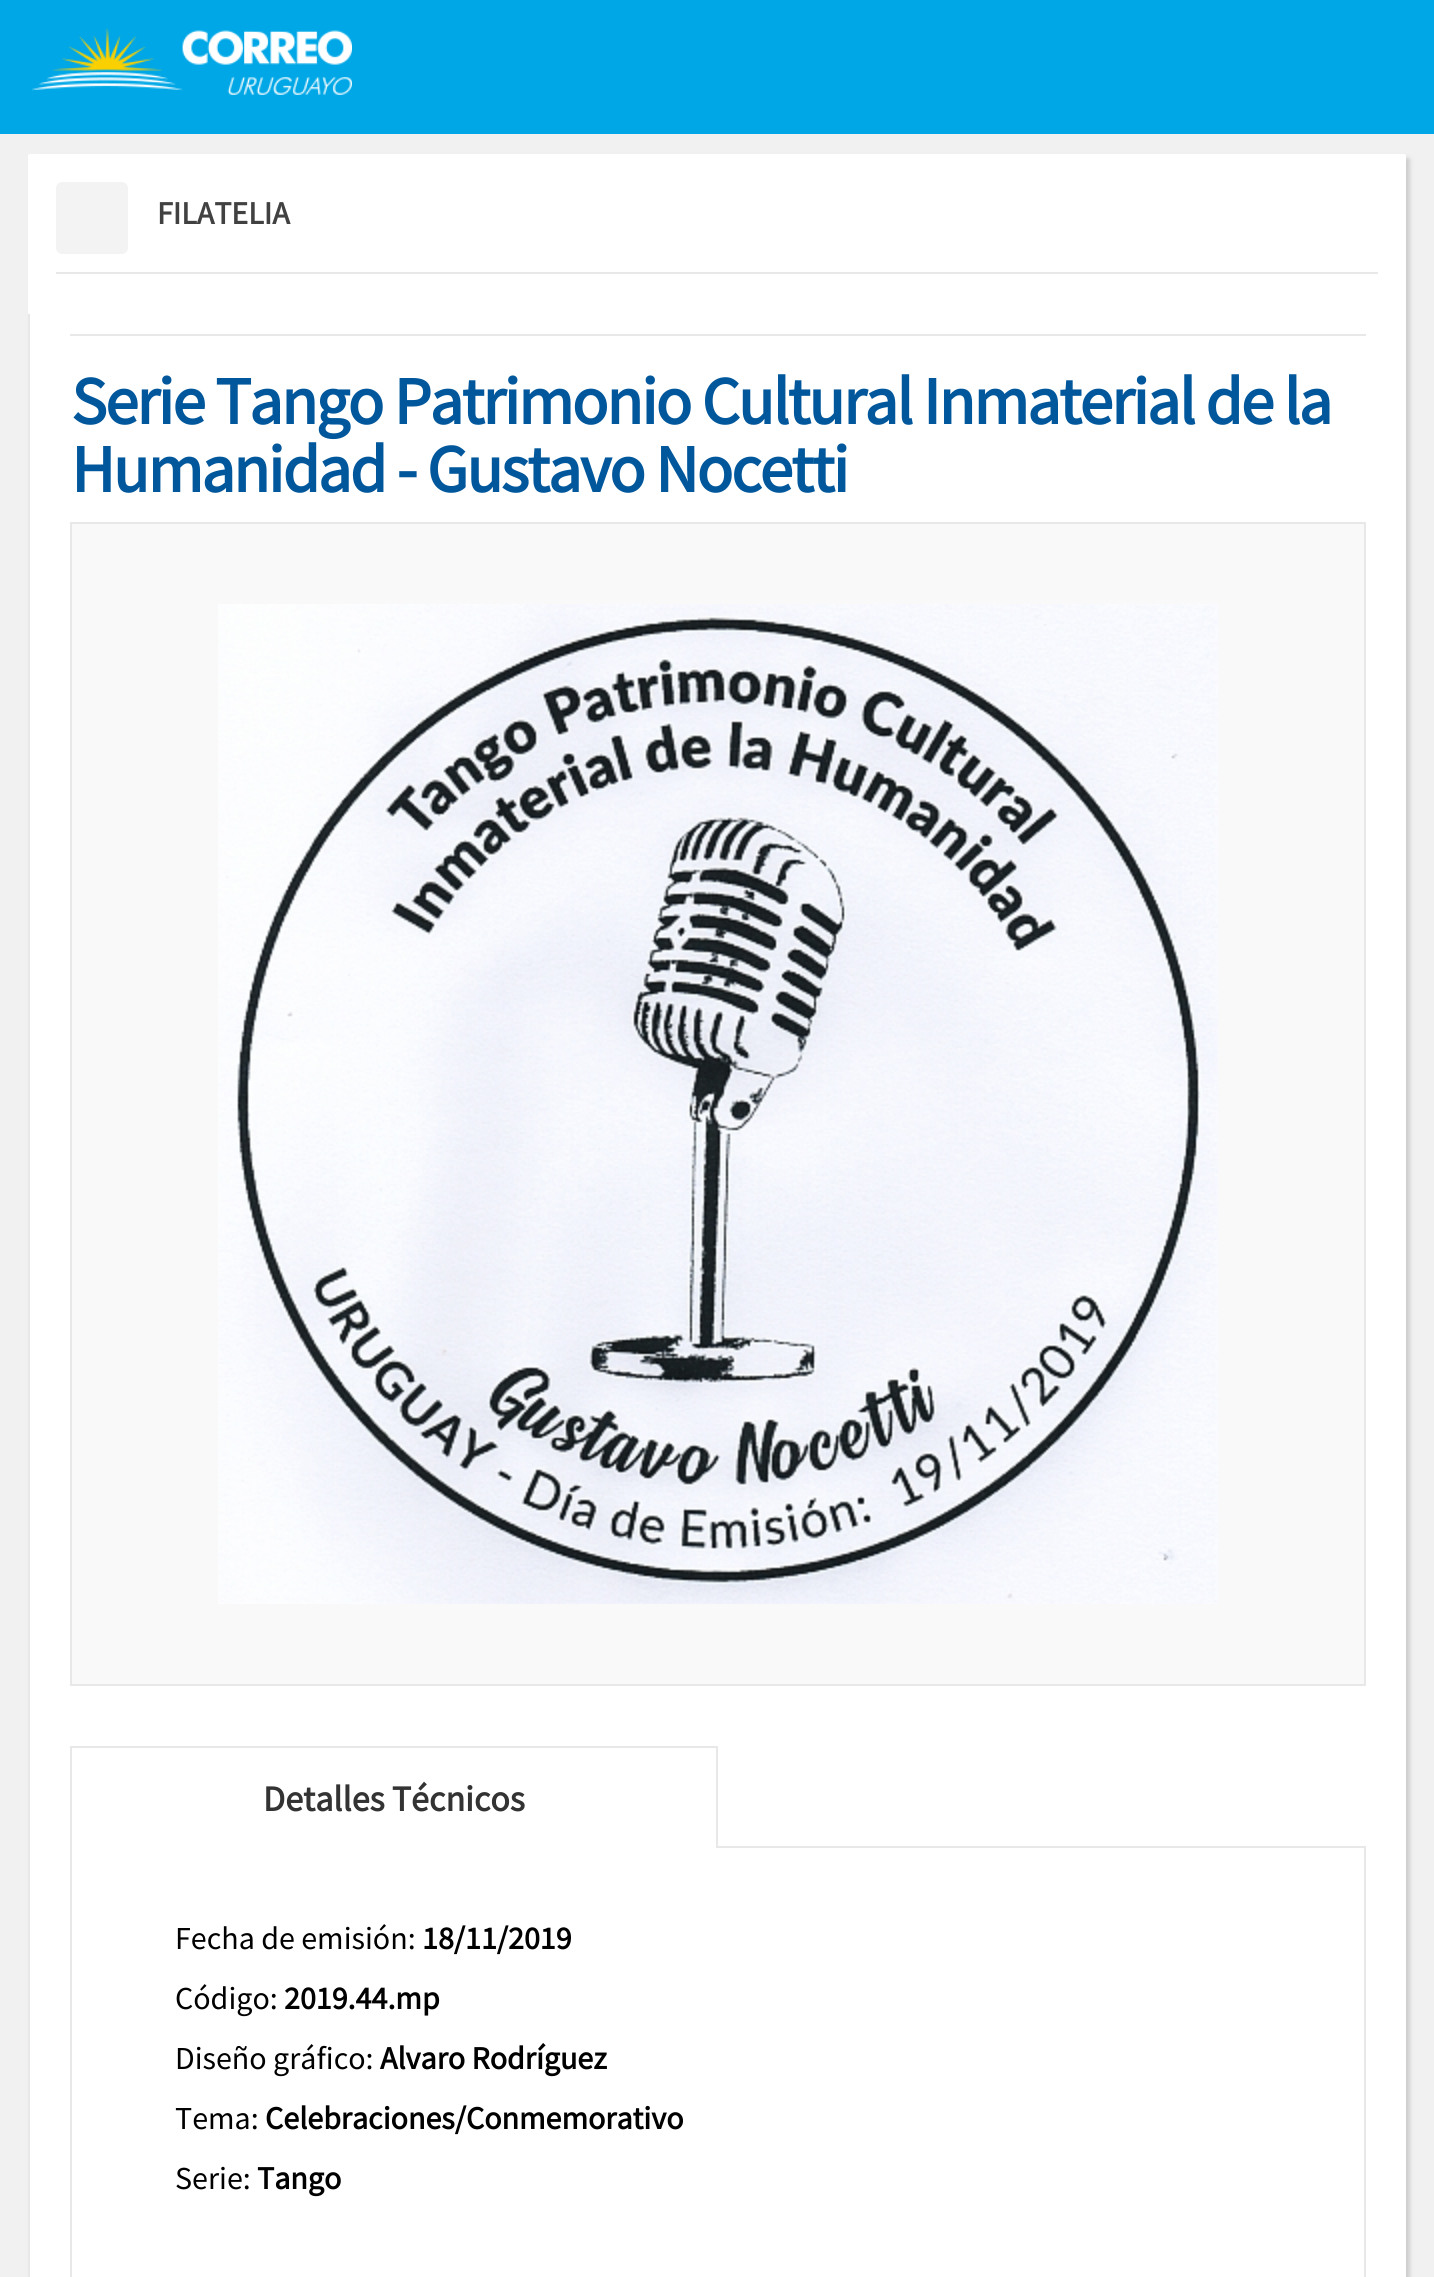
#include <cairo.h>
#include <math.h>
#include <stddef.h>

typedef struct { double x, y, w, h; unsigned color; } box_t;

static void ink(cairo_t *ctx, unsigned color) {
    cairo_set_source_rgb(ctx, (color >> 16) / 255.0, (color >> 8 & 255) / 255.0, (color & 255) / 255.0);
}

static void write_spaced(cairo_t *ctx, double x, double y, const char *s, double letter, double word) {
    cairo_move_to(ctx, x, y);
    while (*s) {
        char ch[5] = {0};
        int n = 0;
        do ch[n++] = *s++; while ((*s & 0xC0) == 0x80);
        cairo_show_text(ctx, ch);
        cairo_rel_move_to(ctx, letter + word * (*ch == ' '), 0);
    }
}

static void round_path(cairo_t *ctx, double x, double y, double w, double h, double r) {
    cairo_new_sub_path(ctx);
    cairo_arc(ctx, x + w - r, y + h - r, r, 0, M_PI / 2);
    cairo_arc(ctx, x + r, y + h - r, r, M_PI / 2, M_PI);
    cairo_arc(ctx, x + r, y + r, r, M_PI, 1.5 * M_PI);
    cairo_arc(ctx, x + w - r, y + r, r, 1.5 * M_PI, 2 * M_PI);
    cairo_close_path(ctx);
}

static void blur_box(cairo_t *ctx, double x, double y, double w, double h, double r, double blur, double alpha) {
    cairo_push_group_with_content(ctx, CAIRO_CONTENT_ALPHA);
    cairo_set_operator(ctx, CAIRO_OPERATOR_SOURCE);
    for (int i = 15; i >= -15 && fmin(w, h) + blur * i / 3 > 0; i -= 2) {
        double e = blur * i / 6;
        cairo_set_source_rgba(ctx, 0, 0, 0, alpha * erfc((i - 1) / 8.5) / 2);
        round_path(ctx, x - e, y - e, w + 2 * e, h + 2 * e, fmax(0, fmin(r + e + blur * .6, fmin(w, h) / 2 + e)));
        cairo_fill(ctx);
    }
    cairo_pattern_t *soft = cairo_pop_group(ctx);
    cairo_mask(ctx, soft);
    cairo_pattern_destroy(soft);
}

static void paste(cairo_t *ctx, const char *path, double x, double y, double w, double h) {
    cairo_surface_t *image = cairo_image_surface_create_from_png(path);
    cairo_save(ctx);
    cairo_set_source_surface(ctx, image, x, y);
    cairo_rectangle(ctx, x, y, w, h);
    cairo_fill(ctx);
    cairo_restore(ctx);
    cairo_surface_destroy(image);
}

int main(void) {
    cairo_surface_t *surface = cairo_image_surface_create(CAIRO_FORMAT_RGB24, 1434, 2277);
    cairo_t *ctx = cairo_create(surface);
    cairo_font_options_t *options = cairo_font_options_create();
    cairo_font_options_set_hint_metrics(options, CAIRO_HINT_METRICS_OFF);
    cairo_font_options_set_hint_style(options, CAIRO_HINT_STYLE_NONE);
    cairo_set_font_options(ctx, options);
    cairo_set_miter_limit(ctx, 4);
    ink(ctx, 0xF1F1F1);
    cairo_paint(ctx);
    ink(ctx, 0x00A7E6);
    cairo_rectangle(ctx, 0, 0, 1434, 134);
    cairo_fill(ctx);
    paste(ctx, "media/1.png", 32, 28, 320, 67);
    ink(ctx, 0xCECECE);
    blur_box(ctx, 32, 158, 1378, 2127, 2, 2, 1);
    ink(ctx, 0xFFFFFF);
    round_path(ctx, 28, 154, 1378, 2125, 2);
    cairo_fill(ctx);
    ink(ctx, 0xF3F3F3);
    round_path(ctx, 56, 182, 72, 72, 6);
    cairo_fill(ctx);
    ink(ctx, 0xE8E8E8);
    cairo_rectangle(ctx, 56, 272, 1322, 2);
    cairo_fill(ctx);
    cairo_select_font_face(ctx, "Source Sans Pro", CAIRO_FONT_SLANT_NORMAL, CAIRO_FONT_WEIGHT_BOLD);
    cairo_set_font_size(ctx, 32);
    ink(ctx, 0x414141);
    cairo_move_to(ctx, 157, 224);
    cairo_show_text(ctx, "FILATELIA");
    ink(ctx, 0xE8E8E8);
    cairo_rectangle(ctx, 28, 314, 2, 1963);
    cairo_fill(ctx);
    cairo_rectangle(ctx, 70, 334, 1296, 2);
    cairo_fill(ctx);
    cairo_set_font_size(ctx, 67.25);
    ink(ctx, 0x01579B);
    write_spaced(ctx, 71, 424, "Serie Tango Patrimonio Cultural Inmaterial de la", -2, 0);
    write_spaced(ctx, 71, 492, "Humanidad - Gustavo Nocetti", -2, 0);
    ink(ctx, 0xF9F9F9);
    cairo_rectangle(ctx, 71, 523, 1294, 1162);
    cairo_fill_preserve(ctx);
    ink(ctx, 0xE8E8E8);
    cairo_stroke(ctx);
    paste(ctx, "media/2.png", 218, 604, 1000, 1000);
    {
        static const box_t items[] = {
            {718, 1846, 648, 2, 0xE8E8E8},
            {70, 1746, 648, 2, 0xE8E8E8},
            {716, 1746, 2, 102, 0xE8E8E8},
            {70, 1746, 2, 102, 0xE8E8E8},
        };
        for (size_t i = 0; i < sizeof items / sizeof *items; i++) {
            ink(ctx, items[i].color);
            cairo_rectangle(ctx, items[i].x, items[i].y, items[i].w, items[i].h);
            cairo_fill(ctx);
        }
    }
    cairo_set_font_size(ctx, 36);
    ink(ctx, 0x333333);
    cairo_move_to(ctx, 263, 1811);
    cairo_show_text(ctx, "Detalles Técnicos");
    ink(ctx, 0xE8E8E8);
    cairo_rectangle(ctx, 1364, 1848, 2, 429);
    cairo_fill(ctx);
    cairo_rectangle(ctx, 70, 1848, 2, 429);
    cairo_fill(ctx);
    cairo_select_font_face(ctx, "Source Sans Pro", CAIRO_FONT_SLANT_NORMAL, CAIRO_FONT_WEIGHT_NORMAL);
    cairo_set_font_size(ctx, 32);
    ink(ctx, 0x000000);
    cairo_move_to(ctx, 175, 1949);
    cairo_show_text(ctx, "Fecha de emisión:");
    cairo_select_font_face(ctx, "Source Sans Pro", CAIRO_FONT_SLANT_NORMAL, CAIRO_FONT_WEIGHT_BOLD);
    cairo_move_to(ctx, 422, 1949);
    cairo_show_text(ctx, "18/11/2019");
    cairo_select_font_face(ctx, "Source Sans Pro", CAIRO_FONT_SLANT_NORMAL, CAIRO_FONT_WEIGHT_NORMAL);
    cairo_move_to(ctx, 175, 2009);
    cairo_show_text(ctx, "Código:");
    cairo_select_font_face(ctx, "Source Sans Pro", CAIRO_FONT_SLANT_NORMAL, CAIRO_FONT_WEIGHT_BOLD);
    cairo_move_to(ctx, 284, 2009);
    cairo_show_text(ctx, "2019.44.mp");
    cairo_select_font_face(ctx, "Source Sans Pro", CAIRO_FONT_SLANT_NORMAL, CAIRO_FONT_WEIGHT_NORMAL);
    cairo_move_to(ctx, 175, 2069);
    cairo_show_text(ctx, "Diseño gráfico:");
    cairo_select_font_face(ctx, "Source Sans Pro", CAIRO_FONT_SLANT_NORMAL, CAIRO_FONT_WEIGHT_BOLD);
    cairo_move_to(ctx, 380, 2069);
    cairo_show_text(ctx, "Alvaro Rodríguez");
    cairo_select_font_face(ctx, "Source Sans Pro", CAIRO_FONT_SLANT_NORMAL, CAIRO_FONT_WEIGHT_NORMAL);
    cairo_move_to(ctx, 175, 2129);
    cairo_show_text(ctx, "Tema:");
    cairo_select_font_face(ctx, "Source Sans Pro", CAIRO_FONT_SLANT_NORMAL, CAIRO_FONT_WEIGHT_BOLD);
    cairo_move_to(ctx, 265, 2129);
    cairo_show_text(ctx, "Celebraciones/Conmemorativo");
    cairo_select_font_face(ctx, "Source Sans Pro", CAIRO_FONT_SLANT_NORMAL, CAIRO_FONT_WEIGHT_NORMAL);
    cairo_move_to(ctx, 175, 2189);
    cairo_show_text(ctx, "Serie:");
    cairo_select_font_face(ctx, "Source Sans Pro", CAIRO_FONT_SLANT_NORMAL, CAIRO_FONT_WEIGHT_BOLD);
    cairo_move_to(ctx, 257, 2189);
    cairo_show_text(ctx, "Tango");
    cairo_surface_write_to_png(surface, "image.png");
    cairo_font_options_destroy(options);
    cairo_destroy(ctx);
    cairo_surface_destroy(surface);
    return 0;
}
